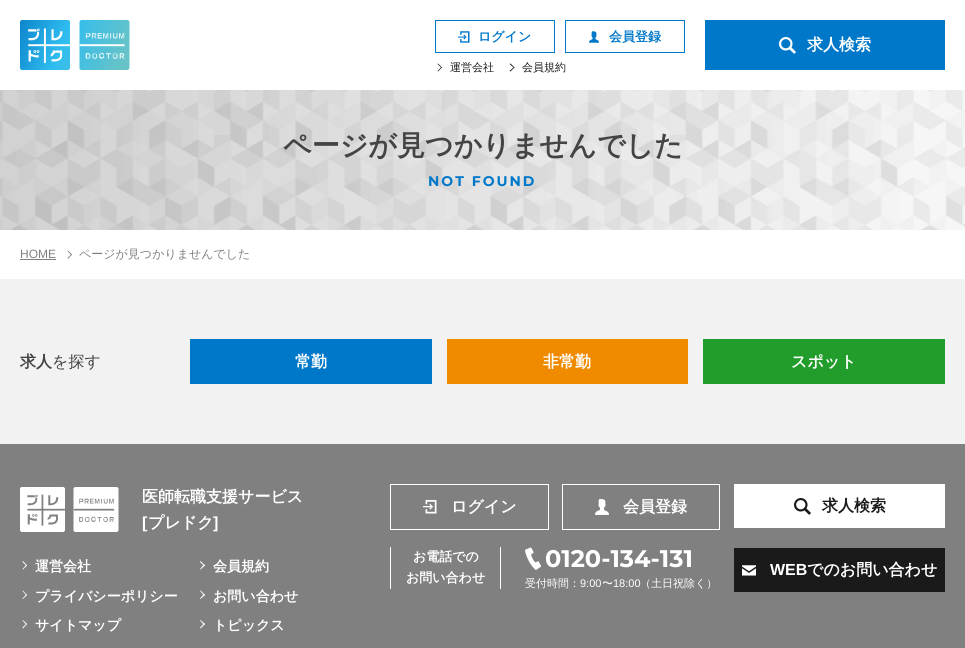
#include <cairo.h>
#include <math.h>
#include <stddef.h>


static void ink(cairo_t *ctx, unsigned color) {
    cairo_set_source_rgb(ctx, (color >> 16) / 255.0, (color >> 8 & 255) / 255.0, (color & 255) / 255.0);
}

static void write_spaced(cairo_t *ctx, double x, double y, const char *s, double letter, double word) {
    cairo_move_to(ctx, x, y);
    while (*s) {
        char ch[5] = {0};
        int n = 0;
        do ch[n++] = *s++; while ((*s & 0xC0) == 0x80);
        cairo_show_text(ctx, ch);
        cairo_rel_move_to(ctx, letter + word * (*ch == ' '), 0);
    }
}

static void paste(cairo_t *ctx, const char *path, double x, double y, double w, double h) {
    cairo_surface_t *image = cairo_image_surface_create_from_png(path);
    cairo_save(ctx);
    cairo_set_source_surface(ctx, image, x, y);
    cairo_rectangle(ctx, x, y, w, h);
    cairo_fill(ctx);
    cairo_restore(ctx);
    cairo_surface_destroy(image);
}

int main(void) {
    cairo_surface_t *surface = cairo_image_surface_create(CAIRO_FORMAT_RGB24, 965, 648);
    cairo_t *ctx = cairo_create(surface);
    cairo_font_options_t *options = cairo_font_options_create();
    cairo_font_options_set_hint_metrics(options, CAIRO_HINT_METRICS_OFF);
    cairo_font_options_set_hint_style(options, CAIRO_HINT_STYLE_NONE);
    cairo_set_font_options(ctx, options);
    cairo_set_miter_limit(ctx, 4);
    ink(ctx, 0xFFFFFF);
    cairo_paint(ctx);
    paste(ctx, "media/1.png", 20, 20, 110, 50);
    cairo_rectangle(ctx, 435.5, 20.5, 119, 32);
    ink(ctx, 0x0078C9);
    cairo_set_line_width(ctx, 1);
    cairo_stroke(ctx);
    paste(ctx, "media/2.png", 458, 31, 12, 12);
    cairo_select_font_face(ctx, "WenQuanYi Zen Hei", CAIRO_FONT_SLANT_NORMAL, CAIRO_FONT_WEIGHT_BOLD);
    cairo_set_font_size(ctx, 13);
    cairo_move_to(ctx, 478, 41);
    cairo_show_text(ctx, "ログイン");
    cairo_rectangle(ctx, 565.5, 20.5, 119, 32);
    cairo_stroke(ctx);
    paste(ctx, "media/3.png", 589, 31, 10, 12);
    cairo_move_to(ctx, 609, 41);
    cairo_show_text(ctx, "会員登録");
    ink(ctx, 0x1A1A1A);
    cairo_new_path(ctx);
    cairo_move_to(ctx, 442, 67.5);
    cairo_line_to(ctx, 438, 71.5);
    cairo_line_to(ctx, 437.5, 71);
    cairo_line_to(ctx, 441.5, 67);
    cairo_close_path(ctx);
    cairo_fill(ctx);
    cairo_new_path(ctx);
    cairo_move_to(ctx, 442, 67.5);
    cairo_line_to(ctx, 441.5, 68);
    cairo_line_to(ctx, 437.5, 64);
    cairo_line_to(ctx, 438, 63.5);
    cairo_close_path(ctx);
    cairo_fill(ctx);
    cairo_select_font_face(ctx, "WenQuanYi Zen Hei Medium", CAIRO_FONT_SLANT_NORMAL, CAIRO_FONT_WEIGHT_NORMAL);
    cairo_set_font_size(ctx, 11);
    cairo_move_to(ctx, 450, 71);
    cairo_show_text(ctx, "運営会社");
    cairo_new_path(ctx);
    cairo_move_to(ctx, 514.5, 67.5);
    cairo_line_to(ctx, 510.5, 71.5);
    cairo_line_to(ctx, 509.5, 71);
    cairo_line_to(ctx, 514, 67);
    cairo_close_path(ctx);
    cairo_fill(ctx);
    cairo_new_path(ctx);
    cairo_move_to(ctx, 514.5, 67.5);
    cairo_line_to(ctx, 514, 68);
    cairo_line_to(ctx, 509.5, 64);
    cairo_line_to(ctx, 510.5, 63.5);
    cairo_close_path(ctx);
    cairo_fill(ctx);
    cairo_move_to(ctx, 522, 71);
    cairo_show_text(ctx, "会員規約");
    ink(ctx, 0x0078C9);
    cairo_rectangle(ctx, 705, 20, 240, 50);
    cairo_fill(ctx);
    paste(ctx, "media/4.png", 779, 37, 17, 17);
    cairo_select_font_face(ctx, "WenQuanYi Zen Hei", CAIRO_FONT_SLANT_NORMAL, CAIRO_FONT_WEIGHT_BOLD);
    cairo_set_font_size(ctx, 16);
    ink(ctx, 0xFFFFFF);
    cairo_move_to(ctx, 807, 50);
    cairo_show_text(ctx, "求人検索");
    paste(ctx, "media/5.png", 0, 90, 965, 140);
    cairo_set_font_size(ctx, 28);
    ink(ctx, 0x444444);
    cairo_move_to(ctx, 283, 155);
    cairo_show_text(ctx, "ページが見つかりませんでした");
    cairo_select_font_face(ctx, "Montserrat", CAIRO_FONT_SLANT_NORMAL, CAIRO_FONT_WEIGHT_BOLD);
    cairo_set_font_size(ctx, 14);
    ink(ctx, 0x0078C9);
    write_spaced(ctx, 428, 186, "NOT FOUND", 2, 0);
    cairo_select_font_face(ctx, "Liberation Sans", CAIRO_FONT_SLANT_NORMAL, CAIRO_FONT_WEIGHT_NORMAL);
    cairo_set_font_size(ctx, 12);
    ink(ctx, 0x808080);
    cairo_move_to(ctx, 20, 258);
    cairo_show_text(ctx, "HOME");
    cairo_rectangle(ctx, 20, 259, 36, 1);
    cairo_fill(ctx);
    cairo_new_path(ctx);
    cairo_move_to(ctx, 72, 254.5);
    cairo_line_to(ctx, 68, 259);
    cairo_line_to(ctx, 67.5, 258);
    cairo_line_to(ctx, 71.5, 254);
    cairo_close_path(ctx);
    cairo_fill(ctx);
    cairo_new_path(ctx);
    cairo_move_to(ctx, 72, 254.5);
    cairo_line_to(ctx, 71.5, 255.5);
    cairo_line_to(ctx, 67.5, 251);
    cairo_line_to(ctx, 68, 250.5);
    cairo_close_path(ctx);
    cairo_fill(ctx);
    cairo_select_font_face(ctx, "WenQuanYi Zen Hei Medium", CAIRO_FONT_SLANT_NORMAL, CAIRO_FONT_WEIGHT_NORMAL);
    cairo_move_to(ctx, 79, 258);
    cairo_show_text(ctx, "ページが見つかりませんでした");
    ink(ctx, 0xF2F2F2);
    cairo_rectangle(ctx, 0, 279, 965, 165);
    cairo_fill(ctx);
    cairo_select_font_face(ctx, "WenQuanYi Zen Hei", CAIRO_FONT_SLANT_NORMAL, CAIRO_FONT_WEIGHT_BOLD);
    cairo_set_font_size(ctx, 16);
    ink(ctx, 0x444444);
    cairo_move_to(ctx, 20, 367);
    cairo_show_text(ctx, "求人");
    cairo_select_font_face(ctx, "WenQuanYi Zen Hei Medium", CAIRO_FONT_SLANT_NORMAL, CAIRO_FONT_WEIGHT_NORMAL);
    cairo_move_to(ctx, 52, 367);
    cairo_show_text(ctx, "を探す");
    ink(ctx, 0x0078C9);
    cairo_rectangle(ctx, 190, 339, 242, 45);
    cairo_fill(ctx);
    cairo_select_font_face(ctx, "WenQuanYi Zen Hei", CAIRO_FONT_SLANT_NORMAL, CAIRO_FONT_WEIGHT_BOLD);
    ink(ctx, 0xFFFFFF);
    cairo_move_to(ctx, 295, 367);
    cairo_show_text(ctx, "常勤");
    ink(ctx, 0xF08B00);
    cairo_rectangle(ctx, 447, 339, 241, 45);
    cairo_fill(ctx);
    ink(ctx, 0xFFFFFF);
    cairo_move_to(ctx, 543, 367);
    cairo_show_text(ctx, "非常勤");
    ink(ctx, 0x229D2B);
    cairo_rectangle(ctx, 703, 339, 242, 45);
    cairo_fill(ctx);
    ink(ctx, 0xFFFFFF);
    cairo_move_to(ctx, 791, 367);
    cairo_show_text(ctx, "スポット");
    ink(ctx, 0x808080);
    cairo_rectangle(ctx, 0, 444, 965, 204);
    cairo_fill(ctx);
    paste(ctx, "media/6.png", 20, 487, 99, 45);
    ink(ctx, 0xFFFFFF);
    cairo_move_to(ctx, 142, 502);
    cairo_show_text(ctx, "医師転職支援サービス");
    cairo_select_font_face(ctx, "Liberation Sans", CAIRO_FONT_SLANT_NORMAL, CAIRO_FONT_WEIGHT_BOLD);
    cairo_move_to(ctx, 142, 528);
    cairo_show_text(ctx, "[");
    cairo_select_font_face(ctx, "WenQuanYi Zen Hei", CAIRO_FONT_SLANT_NORMAL, CAIRO_FONT_WEIGHT_BOLD);
    cairo_move_to(ctx, 148, 528);
    cairo_show_text(ctx, "プレドク");
    cairo_select_font_face(ctx, "Liberation Sans", CAIRO_FONT_SLANT_NORMAL, CAIRO_FONT_WEIGHT_BOLD);
    cairo_move_to(ctx, 213, 528);
    cairo_show_text(ctx, "]");
    cairo_new_path(ctx);
    cairo_move_to(ctx, 27, 565.5);
    cairo_line_to(ctx, 23, 569.5);
    cairo_line_to(ctx, 22.5, 569);
    cairo_line_to(ctx, 26.5, 564.5);
    cairo_close_path(ctx);
    cairo_fill(ctx);
    cairo_new_path(ctx);
    cairo_move_to(ctx, 27, 565.5);
    cairo_line_to(ctx, 26.5, 566);
    cairo_line_to(ctx, 22.5, 562);
    cairo_line_to(ctx, 23, 561);
    cairo_close_path(ctx);
    cairo_fill(ctx);
    cairo_select_font_face(ctx, "WenQuanYi Zen Hei", CAIRO_FONT_SLANT_NORMAL, CAIRO_FONT_WEIGHT_BOLD);
    cairo_set_font_size(ctx, 14);
    cairo_move_to(ctx, 35, 571);
    cairo_show_text(ctx, "運営会社");
    cairo_new_path(ctx);
    cairo_move_to(ctx, 205, 565.5);
    cairo_line_to(ctx, 200.5, 569.5);
    cairo_line_to(ctx, 200, 569);
    cairo_line_to(ctx, 204, 564.5);
    cairo_close_path(ctx);
    cairo_fill(ctx);
    cairo_new_path(ctx);
    cairo_move_to(ctx, 205, 565.5);
    cairo_line_to(ctx, 204, 566);
    cairo_line_to(ctx, 200, 562);
    cairo_line_to(ctx, 200.5, 561);
    cairo_close_path(ctx);
    cairo_fill(ctx);
    cairo_move_to(ctx, 213, 571);
    cairo_show_text(ctx, "会員規約");
    cairo_new_path(ctx);
    cairo_move_to(ctx, 27, 595);
    cairo_line_to(ctx, 23, 599);
    cairo_line_to(ctx, 22.5, 598.5);
    cairo_line_to(ctx, 26.5, 594);
    cairo_close_path(ctx);
    cairo_fill(ctx);
    cairo_new_path(ctx);
    cairo_move_to(ctx, 27, 595);
    cairo_line_to(ctx, 26.5, 595.5);
    cairo_line_to(ctx, 22.5, 591);
    cairo_line_to(ctx, 23, 590.5);
    cairo_close_path(ctx);
    cairo_fill(ctx);
    cairo_move_to(ctx, 35, 601);
    cairo_show_text(ctx, "プライバシーポリシー");
    cairo_new_path(ctx);
    cairo_move_to(ctx, 205, 595);
    cairo_line_to(ctx, 200.5, 599);
    cairo_line_to(ctx, 200, 598.5);
    cairo_line_to(ctx, 204, 594);
    cairo_close_path(ctx);
    cairo_fill(ctx);
    cairo_new_path(ctx);
    cairo_move_to(ctx, 205, 595);
    cairo_line_to(ctx, 204, 595.5);
    cairo_line_to(ctx, 200, 591);
    cairo_line_to(ctx, 200.5, 590.5);
    cairo_close_path(ctx);
    cairo_fill(ctx);
    cairo_move_to(ctx, 213, 601);
    cairo_show_text(ctx, "お問い合わせ");
    cairo_new_path(ctx);
    cairo_move_to(ctx, 27, 624);
    cairo_line_to(ctx, 23, 628.5);
    cairo_line_to(ctx, 22.5, 627.5);
    cairo_line_to(ctx, 26.5, 623.5);
    cairo_close_path(ctx);
    cairo_fill(ctx);
    cairo_new_path(ctx);
    cairo_move_to(ctx, 27, 624);
    cairo_line_to(ctx, 26.5, 625);
    cairo_line_to(ctx, 22.5, 620.5);
    cairo_line_to(ctx, 23, 620);
    cairo_close_path(ctx);
    cairo_fill(ctx);
    cairo_move_to(ctx, 35, 630);
    cairo_show_text(ctx, "サイトマップ");
    cairo_new_path(ctx);
    cairo_move_to(ctx, 205, 624);
    cairo_line_to(ctx, 200.5, 628.5);
    cairo_line_to(ctx, 200, 627.5);
    cairo_line_to(ctx, 204, 623.5);
    cairo_close_path(ctx);
    cairo_fill(ctx);
    cairo_new_path(ctx);
    cairo_move_to(ctx, 205, 624);
    cairo_line_to(ctx, 204, 625);
    cairo_line_to(ctx, 200, 620.5);
    cairo_line_to(ctx, 200.5, 620);
    cairo_close_path(ctx);
    cairo_fill(ctx);
    cairo_move_to(ctx, 213, 630);
    cairo_show_text(ctx, "トピックス");
    cairo_rectangle(ctx, 390.5, 484.5, 158, 45);
    cairo_stroke(ctx);
    paste(ctx, "media/7.png", 423, 500, 14, 14);
    cairo_set_font_size(ctx, 16);
    cairo_move_to(ctx, 451, 512);
    cairo_show_text(ctx, "ログイン");
    cairo_rectangle(ctx, 562.5, 484.5, 157, 45);
    cairo_stroke(ctx);
    paste(ctx, "media/8.png", 595, 499, 14, 16);
    cairo_move_to(ctx, 623, 512);
    cairo_show_text(ctx, "会員登録");
    cairo_rectangle(ctx, 500, 547, 1, 42);
    cairo_fill(ctx);
    cairo_rectangle(ctx, 390, 547, 1, 42);
    cairo_fill(ctx);
    cairo_set_font_size(ctx, 13);
    cairo_move_to(ctx, 413, 561);
    cairo_show_text(ctx, "お電話での");
    cairo_move_to(ctx, 406, 582);
    cairo_show_text(ctx, "お問い合わせ");
    paste(ctx, "media/9.png", 525, 547, 16, 23);
    cairo_select_font_face(ctx, "Montserrat", CAIRO_FONT_SLANT_NORMAL, CAIRO_FONT_WEIGHT_BOLD);
    cairo_set_font_size(ctx, 24);
    cairo_move_to(ctx, 545, 567);
    cairo_show_text(ctx, "0120-134-131");
    cairo_select_font_face(ctx, "WenQuanYi Zen Hei Medium", CAIRO_FONT_SLANT_NORMAL, CAIRO_FONT_WEIGHT_NORMAL);
    cairo_set_font_size(ctx, 11);
    cairo_move_to(ctx, 525, 587);
    cairo_show_text(ctx, "受付時間：");
    cairo_select_font_face(ctx, "Liberation Sans", CAIRO_FONT_SLANT_NORMAL, CAIRO_FONT_WEIGHT_NORMAL);
    cairo_move_to(ctx, 580, 587);
    cairo_show_text(ctx, "9:00");
    cairo_select_font_face(ctx, "WenQuanYi Zen Hei Medium", CAIRO_FONT_SLANT_NORMAL, CAIRO_FONT_WEIGHT_NORMAL);
    cairo_move_to(ctx, 602, 587);
    cairo_show_text(ctx, "〜");
    cairo_select_font_face(ctx, "Liberation Sans", CAIRO_FONT_SLANT_NORMAL, CAIRO_FONT_WEIGHT_NORMAL);
    cairo_move_to(ctx, 613, 587);
    cairo_show_text(ctx, "18:00");
    cairo_select_font_face(ctx, "WenQuanYi Zen Hei Medium", CAIRO_FONT_SLANT_NORMAL, CAIRO_FONT_WEIGHT_NORMAL);
    cairo_move_to(ctx, 640, 587);
    cairo_show_text(ctx, "（土日祝除く）");
    cairo_rectangle(ctx, 734, 484, 211, 44);
    cairo_fill(ctx);
    paste(ctx, "media/10.png", 794, 498, 17, 17);
    cairo_select_font_face(ctx, "WenQuanYi Zen Hei", CAIRO_FONT_SLANT_NORMAL, CAIRO_FONT_WEIGHT_BOLD);
    cairo_set_font_size(ctx, 16);
    ink(ctx, 0x1A1A1A);
    cairo_move_to(ctx, 822, 511);
    cairo_show_text(ctx, "求人検索");
    cairo_rectangle(ctx, 734, 548, 211, 44);
    cairo_fill(ctx);
    paste(ctx, "media/11.png", 742, 565, 14, 11);
    cairo_select_font_face(ctx, "Liberation Sans", CAIRO_FONT_SLANT_NORMAL, CAIRO_FONT_WEIGHT_BOLD);
    ink(ctx, 0xFFFFFF);
    cairo_move_to(ctx, 770, 575);
    cairo_show_text(ctx, "WEB");
    cairo_select_font_face(ctx, "WenQuanYi Zen Hei", CAIRO_FONT_SLANT_NORMAL, CAIRO_FONT_WEIGHT_BOLD);
    cairo_move_to(ctx, 807, 575);
    cairo_show_text(ctx, "でのお問い合わせ");
    cairo_surface_write_to_png(surface, "image.png");
    cairo_font_options_destroy(options);
    cairo_destroy(ctx);
    cairo_surface_destroy(surface);
    return 0;
}
